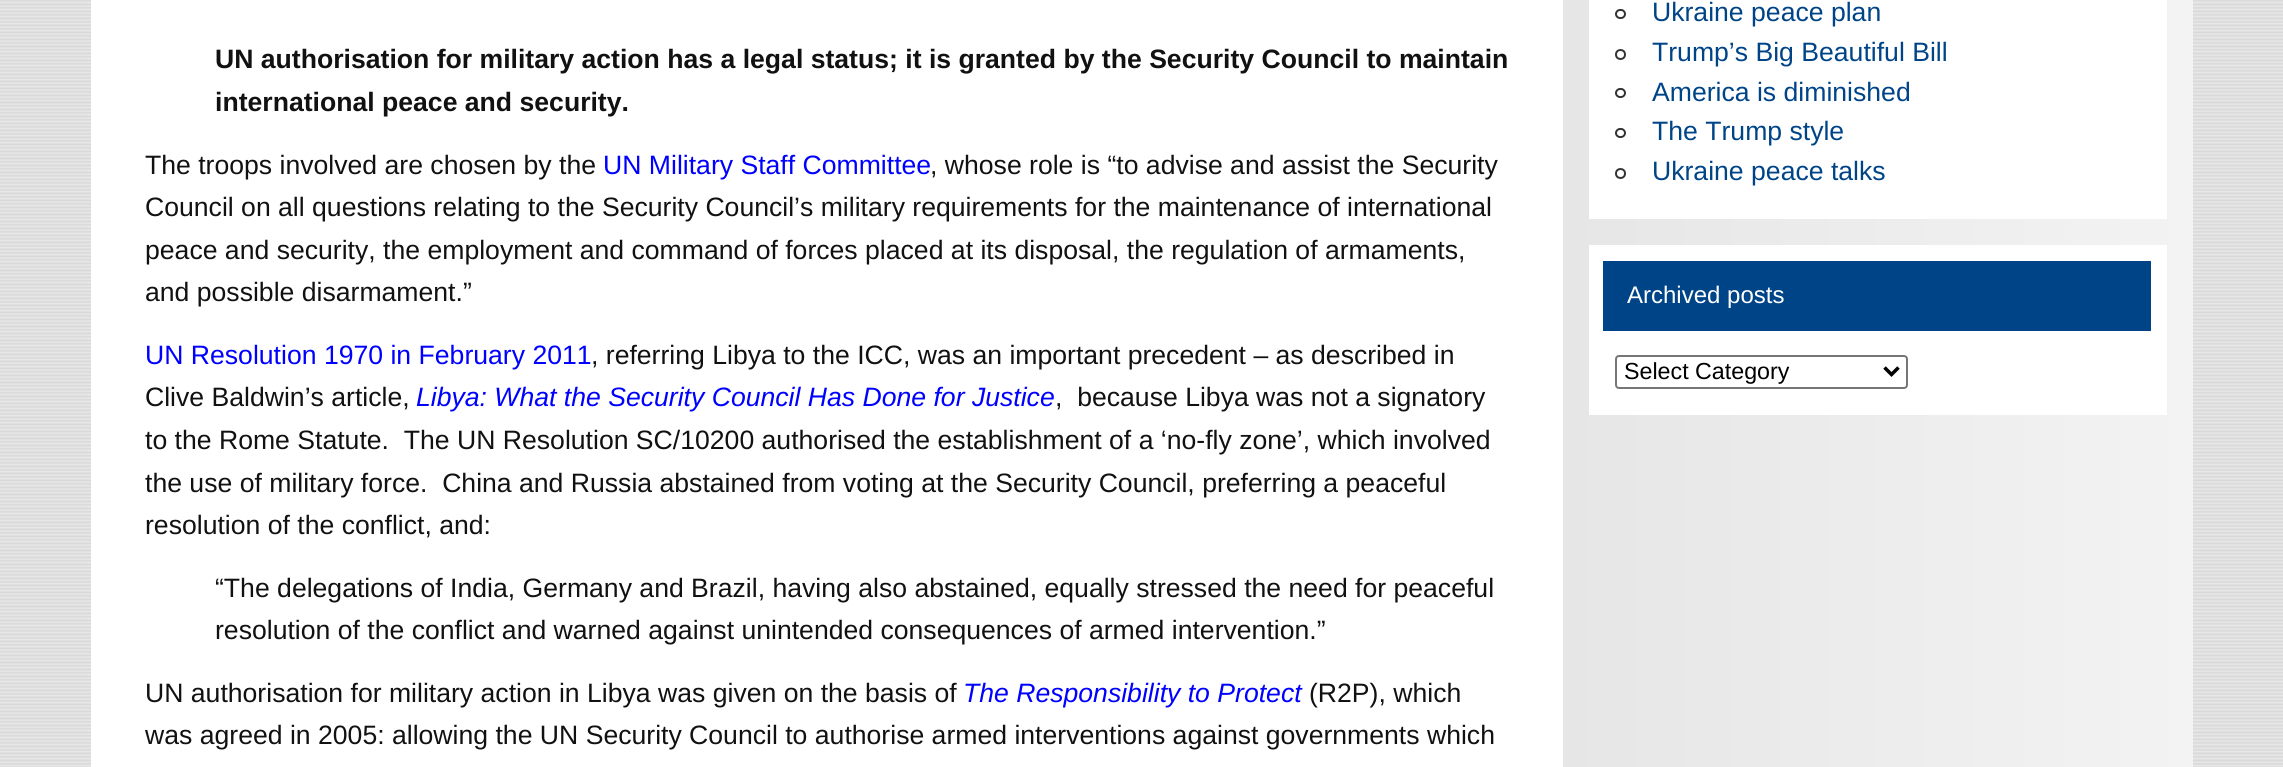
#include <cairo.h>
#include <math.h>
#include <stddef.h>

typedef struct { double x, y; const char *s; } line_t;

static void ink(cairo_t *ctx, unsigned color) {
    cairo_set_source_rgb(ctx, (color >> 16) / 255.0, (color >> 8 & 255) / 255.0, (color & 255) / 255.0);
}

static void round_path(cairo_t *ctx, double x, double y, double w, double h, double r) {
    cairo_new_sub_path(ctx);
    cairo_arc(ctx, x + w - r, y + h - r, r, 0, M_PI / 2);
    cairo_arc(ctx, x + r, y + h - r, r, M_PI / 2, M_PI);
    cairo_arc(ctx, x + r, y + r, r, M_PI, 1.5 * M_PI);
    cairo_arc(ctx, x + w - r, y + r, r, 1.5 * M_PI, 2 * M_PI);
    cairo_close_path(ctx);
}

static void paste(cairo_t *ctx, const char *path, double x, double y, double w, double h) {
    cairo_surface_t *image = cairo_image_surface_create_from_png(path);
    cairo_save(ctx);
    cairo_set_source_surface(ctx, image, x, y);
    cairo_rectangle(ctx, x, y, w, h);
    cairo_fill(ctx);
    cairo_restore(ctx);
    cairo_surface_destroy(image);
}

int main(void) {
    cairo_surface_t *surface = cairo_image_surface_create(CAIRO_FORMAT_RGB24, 2283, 767);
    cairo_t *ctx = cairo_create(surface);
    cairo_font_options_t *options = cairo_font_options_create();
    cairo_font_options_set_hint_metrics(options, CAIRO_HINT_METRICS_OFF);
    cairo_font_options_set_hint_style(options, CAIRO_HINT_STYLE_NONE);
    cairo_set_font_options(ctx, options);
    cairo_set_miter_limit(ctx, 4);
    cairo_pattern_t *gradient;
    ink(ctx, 0xFFFFFF);
    cairo_paint(ctx);
    paste(ctx, "media/1.png", 0, 0, 2283, 767);
    ink(ctx, 0xFFFFFF);
    cairo_rectangle(ctx, 91, 0, 1472, 767);
    cairo_fill(ctx);
    cairo_select_font_face(ctx, "Liberation Sans", CAIRO_FONT_SLANT_NORMAL, CAIRO_FONT_WEIGHT_BOLD);
    cairo_set_font_size(ctx, 26.6);
    ink(ctx, 0x111111);
    cairo_move_to(ctx, 215, 68);
    cairo_show_text(ctx, "UN authorisation for military action has a legal status; it is granted by the Security Council to maintain");
    cairo_move_to(ctx, 215, 111);
    cairo_show_text(ctx, "international peace and security.");
    cairo_select_font_face(ctx, "Liberation Sans", CAIRO_FONT_SLANT_NORMAL, CAIRO_FONT_WEIGHT_NORMAL);
    cairo_move_to(ctx, 145, 174);
    cairo_show_text(ctx, "The troops involved are chosen by the");
    ink(ctx, 0x0000FF);
    cairo_move_to(ctx, 603, 174);
    cairo_show_text(ctx, "UN Military Staff Committee");
    ink(ctx, 0x111111);
    {
        static const line_t items[] = {
            {930, 174, ", whose role is “to advise and assist the Security"},
            {145, 216, "Council on all questions relating to the Security Council’s military requirements for the maintenance of international"},
            {145, 259, "peace and security, the employment and command of forces placed at its disposal, the regulation of armaments,"},
            {145, 301, "and possible disarmament.”"},
        };
        for (size_t i = 0; i < sizeof items / sizeof *items; i++) {
            cairo_move_to(ctx, items[i].x, items[i].y);
            cairo_show_text(ctx, items[i].s);
        }
    }
    ink(ctx, 0x0000FF);
    cairo_move_to(ctx, 145, 364);
    cairo_show_text(ctx, "UN Resolution 1970 in February 2011");
    ink(ctx, 0x111111);
    cairo_move_to(ctx, 591, 364);
    cairo_show_text(ctx, ", referring Libya to the ICC, was an important precedent – as described in");
    cairo_move_to(ctx, 145, 406);
    cairo_show_text(ctx, "Clive Baldwin’s article,");
    cairo_select_font_face(ctx, "Liberation Sans", CAIRO_FONT_SLANT_ITALIC, CAIRO_FONT_WEIGHT_NORMAL);
    ink(ctx, 0x0000FF);
    cairo_move_to(ctx, 416, 406);
    cairo_show_text(ctx, "Libya: What the Security Council Has Done for Justice");
    cairo_select_font_face(ctx, "Liberation Sans", CAIRO_FONT_SLANT_NORMAL, CAIRO_FONT_WEIGHT_NORMAL);
    ink(ctx, 0x111111);
    {
        static const line_t items[] = {
            {1055, 406, ",  because Libya was not a signatory"},
            {145, 449, "to the Rome Statute.  The UN Resolution SC/10200 authorised the establishment of a ‘no-fly zone’, which involved"},
            {145, 492, "the use of military force.  China and Russia abstained from voting at the Security Council, preferring a peaceful"},
            {145, 534, "resolution of the conflict, and:"},
            {215, 597, "“The delegations of India, Germany and Brazil, having also abstained, equally stressed the need for peaceful"},
            {215, 639, "resolution of the conflict and warned against unintended consequences of armed intervention.”"},
            {145, 702, "UN authorisation for military action in Libya was given on the basis of"},
        };
        for (size_t i = 0; i < sizeof items / sizeof *items; i++) {
            cairo_move_to(ctx, items[i].x, items[i].y);
            cairo_show_text(ctx, items[i].s);
        }
    }
    cairo_select_font_face(ctx, "Liberation Sans", CAIRO_FONT_SLANT_ITALIC, CAIRO_FONT_WEIGHT_NORMAL);
    ink(ctx, 0x0000FF);
    cairo_move_to(ctx, 963, 702);
    cairo_show_text(ctx, "The Responsibility to Protect");
    cairo_select_font_face(ctx, "Liberation Sans", CAIRO_FONT_SLANT_NORMAL, CAIRO_FONT_WEIGHT_NORMAL);
    ink(ctx, 0x111111);
    cairo_move_to(ctx, 1309, 702);
    cairo_show_text(ctx, "(R2P), which");
    cairo_move_to(ctx, 145, 744);
    cairo_show_text(ctx, "was agreed in 2005: allowing the UN Security Council to authorise armed interventions against governments which");
    gradient = cairo_pattern_create_linear(1563, 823, 2193, 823);
    cairo_pattern_add_color_stop_rgba(gradient, 0, 0.902, 0.902, 0.902, 1);
    cairo_pattern_add_color_stop_rgba(gradient, 1, 0.953, 0.953, 0.953, 1);
    cairo_set_source(ctx, gradient);
    cairo_pattern_destroy(gradient);
    cairo_rectangle(ctx, 1563, 0, 630, 767);
    cairo_fill(ctx);
    ink(ctx, 0xFFFFFF);
    cairo_rectangle(ctx, 1589, 0, 578, 219);
    cairo_fill(ctx);
    round_path(ctx, 1616, 10, 9, 8, 4);
    ink(ctx, 0x333333);
    cairo_stroke(ctx);
    ink(ctx, 0x004488);
    cairo_move_to(ctx, 1652, 21);
    cairo_show_text(ctx, "Ukraine peace plan");
    cairo_new_path(ctx);
    cairo_arc(ctx, 1620.5, 54.5, 4.5, 0, 2 * M_PI);
    ink(ctx, 0x333333);
    cairo_stroke(ctx);
    ink(ctx, 0x004488);
    cairo_move_to(ctx, 1652, 61);
    cairo_show_text(ctx, "Trump’s Big Beautiful Bill");
    round_path(ctx, 1616, 89, 9, 8, 4);
    ink(ctx, 0x333333);
    cairo_stroke(ctx);
    ink(ctx, 0x004488);
    cairo_move_to(ctx, 1652, 101);
    cairo_show_text(ctx, "America is diminished");
    round_path(ctx, 1616, 129, 9, 8, 4);
    ink(ctx, 0x333333);
    cairo_stroke(ctx);
    ink(ctx, 0x004488);
    cairo_move_to(ctx, 1652, 140);
    cairo_show_text(ctx, "The Trump style");
    cairo_new_path(ctx);
    cairo_arc(ctx, 1620.5, 173.5, 4.5, 0, 2 * M_PI);
    ink(ctx, 0x333333);
    cairo_stroke(ctx);
    ink(ctx, 0x004488);
    cairo_move_to(ctx, 1652, 180);
    cairo_show_text(ctx, "Ukraine peace talks");
    ink(ctx, 0xFFFFFF);
    cairo_rectangle(ctx, 1589, 245, 578, 170);
    cairo_fill(ctx);
    ink(ctx, 0x004488);
    cairo_rectangle(ctx, 1603, 261, 548, 70);
    cairo_fill(ctx);
    cairo_set_font_size(ctx, 24);
    ink(ctx, 0xFFFFFF);
    cairo_move_to(ctx, 1627, 303);
    cairo_show_text(ctx, "Archived posts");
    round_path(ctx, 1616, 356, 291, 32, 3);
    ink(ctx, 0x767676);
    cairo_stroke(ctx);
    cairo_new_path(ctx);
    cairo_move_to(ctx, 1884.5, 367.5);
    cairo_line_to(ctx, 1891.5, 374.5);
    cairo_line_to(ctx, 1898.5, 367.5);
    ink(ctx, 0x000000);
    cairo_set_line_width(ctx, 3.5);
    cairo_stroke(ctx);
    cairo_set_font_size(ctx, 23.25);
    cairo_move_to(ctx, 1624, 379);
    cairo_show_text(ctx, "Select Category");
    cairo_surface_write_to_png(surface, "image.png");
    cairo_font_options_destroy(options);
    cairo_destroy(ctx);
    cairo_surface_destroy(surface);
    return 0;
}
